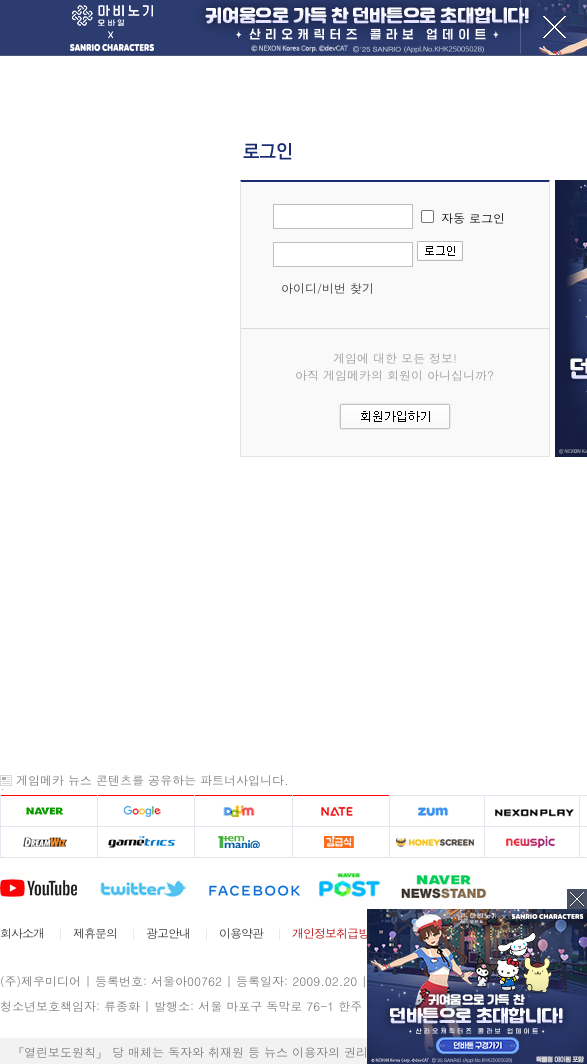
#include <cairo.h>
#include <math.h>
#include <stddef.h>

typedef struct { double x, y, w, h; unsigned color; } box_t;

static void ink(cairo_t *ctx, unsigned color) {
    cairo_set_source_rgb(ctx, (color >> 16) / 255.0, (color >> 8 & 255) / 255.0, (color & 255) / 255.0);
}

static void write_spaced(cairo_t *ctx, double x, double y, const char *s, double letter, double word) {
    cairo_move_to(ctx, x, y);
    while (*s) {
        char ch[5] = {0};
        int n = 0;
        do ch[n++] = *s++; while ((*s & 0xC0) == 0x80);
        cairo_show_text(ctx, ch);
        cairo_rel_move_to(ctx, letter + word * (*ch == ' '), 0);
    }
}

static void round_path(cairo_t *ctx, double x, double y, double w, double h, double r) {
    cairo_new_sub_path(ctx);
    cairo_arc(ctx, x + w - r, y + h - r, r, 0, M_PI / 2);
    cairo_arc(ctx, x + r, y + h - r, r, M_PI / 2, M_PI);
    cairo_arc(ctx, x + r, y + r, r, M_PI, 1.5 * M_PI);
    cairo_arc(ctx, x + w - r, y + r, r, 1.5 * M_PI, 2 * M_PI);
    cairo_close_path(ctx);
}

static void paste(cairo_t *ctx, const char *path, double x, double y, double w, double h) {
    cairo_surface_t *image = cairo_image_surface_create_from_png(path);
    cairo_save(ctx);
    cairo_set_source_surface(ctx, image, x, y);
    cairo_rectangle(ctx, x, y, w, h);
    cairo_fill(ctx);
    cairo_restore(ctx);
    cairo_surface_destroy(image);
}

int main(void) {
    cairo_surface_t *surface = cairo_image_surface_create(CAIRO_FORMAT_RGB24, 587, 1064);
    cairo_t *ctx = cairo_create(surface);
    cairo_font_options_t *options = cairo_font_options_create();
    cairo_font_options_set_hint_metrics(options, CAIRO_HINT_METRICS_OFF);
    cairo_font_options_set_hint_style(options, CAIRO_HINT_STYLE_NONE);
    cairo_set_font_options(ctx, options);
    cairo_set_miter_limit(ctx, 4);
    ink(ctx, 0xFFFFFF);
    cairo_paint(ctx);
    ink(ctx, 0x2C3C70);
    cairo_rectangle(ctx, 0, 0, 68, 55);
    cairo_fill(ctx);
    ink(ctx, 0x4F5873);
    cairo_rectangle(ctx, 0, 55, 587, 1);
    cairo_fill(ctx);
    paste(ctx, "media/1.png", 68, 0, 519, 55);
    paste(ctx, "media/2.png", 520, 0, 47, 54);
    paste(ctx, "media/3.png", 243, 143, 49, 17);
    ink(ctx, 0xF9F9F9);
    cairo_rectangle(ctx, 241, 182, 308, 274);
    cairo_fill(ctx);
    ink(ctx, 0x1A2D72);
    cairo_new_path(ctx);
    cairo_move_to(ctx, 240, 180);
    cairo_line_to(ctx, 550, 180);
    cairo_line_to(ctx, 549, 182);
    cairo_line_to(ctx, 241, 182);
    cairo_close_path(ctx);
    cairo_fill(ctx);
    ink(ctx, 0xE3E3E3);
    cairo_new_path(ctx);
    cairo_move_to(ctx, 550, 180);
    cairo_line_to(ctx, 550, 457);
    cairo_line_to(ctx, 549, 456);
    cairo_line_to(ctx, 549, 182);
    cairo_close_path(ctx);
    cairo_fill(ctx);
    cairo_rectangle(ctx, 240, 456, 310, 1);
    cairo_fill(ctx);
    cairo_new_path(ctx);
    cairo_move_to(ctx, 240, 457);
    cairo_line_to(ctx, 240, 180);
    cairo_line_to(ctx, 241, 182);
    cairo_line_to(ctx, 241, 456);
    cairo_close_path(ctx);
    cairo_fill(ctx);
    ink(ctx, 0xD9D9D9);
    cairo_rectangle(ctx, 241, 328, 308, 1);
    cairo_fill(ctx);
    ink(ctx, 0xFFFFFF);
    cairo_rectangle(ctx, 273.5, 204.5, 139, 24);
    cairo_fill_preserve(ctx);
    ink(ctx, 0xBEBEBE);
    cairo_set_line_width(ctx, 1);
    cairo_stroke(ctx);
    ink(ctx, 0xFFFFFF);
    round_path(ctx, 421.5, 210.5, 12, 12, 1.5);
    cairo_fill_preserve(ctx);
    ink(ctx, 0x767676);
    cairo_stroke(ctx);
    cairo_select_font_face(ctx, "Dotum", CAIRO_FONT_SLANT_NORMAL, CAIRO_FONT_WEIGHT_NORMAL);
    cairo_set_font_size(ctx, 12);
    ink(ctx, 0x020202);
    cairo_move_to(ctx, 441, 223);
    cairo_show_text(ctx, "자동 로그인");
    ink(ctx, 0xFFFFFF);
    cairo_rectangle(ctx, 273.5, 242.5, 139, 24);
    cairo_fill_preserve(ctx);
    ink(ctx, 0xBEBEBE);
    cairo_stroke(ctx);
    paste(ctx, "media/4.png", 417, 241, 46, 20);
    ink(ctx, 0x333333);
    cairo_move_to(ctx, 281, 293);
    cairo_show_text(ctx, "아이디/비번 찾기");
    ink(ctx, 0x999999);
    cairo_move_to(ctx, 333, 363);
    cairo_show_text(ctx, "게임에 대한 모든 정보!");
    cairo_move_to(ctx, 295, 380);
    cairo_show_text(ctx, "아직 게임메카의 회원이 아니십니까?");
    paste(ctx, "media/5.png", 339, 403, 112, 27);
    paste(ctx, "media/6.png", 555, 180, 32, 277);
    paste(ctx, "media/7.png", 0, 775, 12, 15);
    ink(ctx, 0x777777);
    cairo_move_to(ctx, 16, 785);
    cairo_show_text(ctx, "게임메카 뉴스 콘텐츠를 공유하는 파트너사입니다.");
    {
        static const box_t items[] = {
            {579, 795, 8, 1, 0xE6E6F0},
            {579, 826, 8, 1, 0xE6E6F0},
            {579, 857, 8, 1, 0xE6E6F0},
            {579, 826, 1, 32, 0xE6E6F0},
            {484, 826, 96, 1, 0xE6E6F0},
            {579, 795, 1, 32, 0xE6E6F0},
            {484, 795, 96, 1, 0xE6E6F0},
            {484, 857, 96, 1, 0xE6E6F0},
            {484, 826, 1, 32, 0xE6E6F0},
            {389, 826, 96, 1, 0xE6E6F0},
            {484, 795, 1, 32, 0xE6E6F0},
            {389, 795, 96, 1, 0xE6E6F0},
            {0, 795, 390, 1, 0xFF0101},
            {389, 857, 96, 1, 0xE6E6F0},
            {389, 826, 1, 32, 0xE6E6F0},
            {292, 826, 98, 1, 0xE6E6F0},
            {292, 857, 98, 1, 0xE6E6F0},
            {292, 826, 1, 32, 0xE6E6F0},
            {194, 826, 99, 1, 0xE6E6F0},
            {194, 857, 99, 1, 0xE6E6F0},
            {194, 826, 1, 32, 0xE6E6F0},
            {97, 826, 98, 1, 0xE6E6F0},
            {97, 857, 98, 1, 0xE6E6F0},
            {97, 826, 1, 32, 0xE6E6F0},
            {0, 826, 98, 1, 0xE6E6F0},
            {97, 795, 1, 32, 0xE6E6F0},
            {0, 857, 98, 1, 0xE6E6F0},
            {0, 826, 1, 32, 0xE6E6F0},
            {0, 795, 1, 32, 0xE6E6F0},
        };
        for (size_t i = 0; i < sizeof items / sizeof *items; i++) {
            ink(ctx, items[i].color);
            cairo_rectangle(ctx, items[i].x, items[i].y, items[i].w, items[i].h);
            cairo_fill(ctx);
        }
    }
    paste(ctx, "media/8.png", 26, 807, 38, 9);
    cairo_rectangle(ctx, 389, 795, 1, 32);
    cairo_fill(ctx);
    paste(ctx, "media/9.png", 321, 806, 32, 11);
    cairo_rectangle(ctx, 194, 795, 1, 32);
    cairo_fill(ctx);
    paste(ctx, "media/10.png", 123, 805, 38, 12);
    cairo_rectangle(ctx, 292, 795, 1, 32);
    cairo_fill(ctx);
    paste(ctx, "media/11.png", 223, 805, 32, 12);
    paste(ctx, "media/12.png", 418, 807, 31, 10);
    paste(ctx, "media/13.png", 495, 809, 79, 8);
    paste(ctx, "media/14.png", 23, 837, 44, 10);
    paste(ctx, "media/15.png", 108, 836, 68, 12);
    paste(ctx, "media/16.png", 218, 836, 42, 12);
    paste(ctx, "media/17.png", 324, 836, 30, 12);
    paste(ctx, "media/18.png", 396, 838, 78, 9);
    paste(ctx, "media/19.png", 506, 836, 49, 12);
    paste(ctx, "media/20.png", 0, 873, 78, 27);
    paste(ctx, "media/21.png", 100, 880, 89, 20);
    paste(ctx, "media/22.png", 208, 880, 92, 16);
    paste(ctx, "media/23.png", 319, 872, 63, 28);
    paste(ctx, "media/24.png", 401, 872, 87, 28);
    ink(ctx, 0x333333);
    write_spaced(ctx, 0, 938, "회사소개", -1, 0);
    ink(ctx, 0xE9E9E9);
    cairo_rectangle(ctx, 60, 929, 1, 11);
    cairo_fill(ctx);
    ink(ctx, 0x333333);
    write_spaced(ctx, 73, 938, "제휴문의", -1, 0);
    ink(ctx, 0xE9E9E9);
    cairo_rectangle(ctx, 133, 929, 1, 11);
    cairo_fill(ctx);
    ink(ctx, 0x333333);
    write_spaced(ctx, 146, 938, "광고안내", -1, 0);
    ink(ctx, 0xE9E9E9);
    cairo_rectangle(ctx, 206, 929, 1, 11);
    cairo_fill(ctx);
    ink(ctx, 0x333333);
    write_spaced(ctx, 219, 938, "이용약관", -1, 0);
    ink(ctx, 0xE9E9E9);
    cairo_rectangle(ctx, 279, 929, 1, 11);
    cairo_fill(ctx);
    ink(ctx, 0xB90000);
    write_spaced(ctx, 292, 938, "개인정보취급방", -1, 0);
    ink(ctx, 0x777777);
    cairo_move_to(ctx, 0, 986);
    cairo_show_text(ctx, "(주)제우미디어 | 등록번호: 서울아00762 | 등록일자: 2009.02.20 |");
    cairo_move_to(ctx, 0, 1011);
    cairo_show_text(ctx, "청소년보호책임자: 류종화 | 발행소: 서울 마포구 독막로 76-1 한주");
    ink(ctx, 0xF2F2F2);
    cairo_rectangle(ctx, 0, 1038, 367, 26);
    cairo_fill(ctx);
    ink(ctx, 0x777777);
    cairo_move_to(ctx, 12, 1057);
    cairo_show_text(ctx, "『열린보도원칙』 당 매체는 독자와 취재원 등 뉴스 이용자의 권리");
    paste(ctx, "media/25.png", 567, 889, 20, 20);
    paste(ctx, "media/26.png", 367, 909, 220, 155);
    cairo_surface_write_to_png(surface, "image.png");
    cairo_font_options_destroy(options);
    cairo_destroy(ctx);
    cairo_surface_destroy(surface);
    return 0;
}
